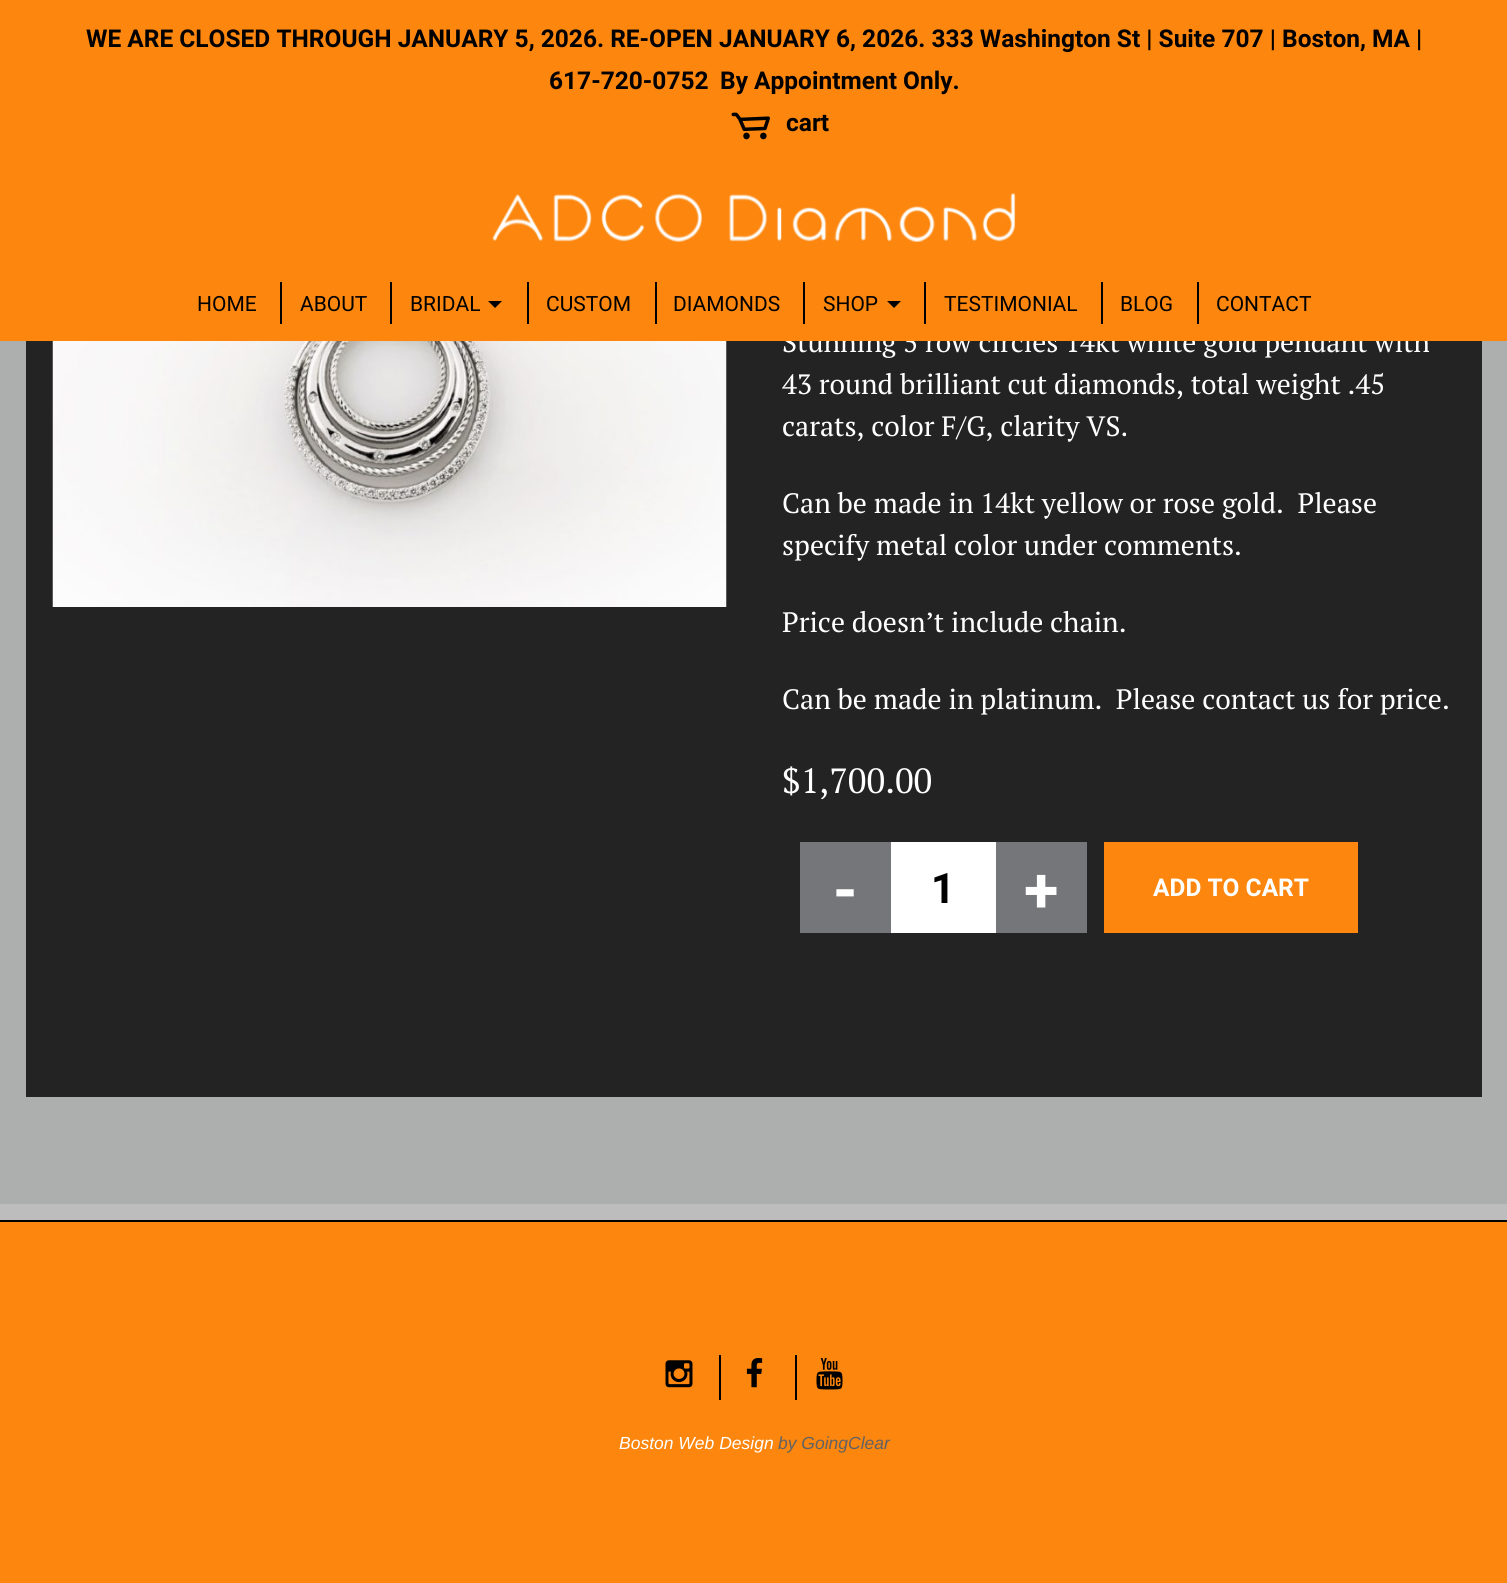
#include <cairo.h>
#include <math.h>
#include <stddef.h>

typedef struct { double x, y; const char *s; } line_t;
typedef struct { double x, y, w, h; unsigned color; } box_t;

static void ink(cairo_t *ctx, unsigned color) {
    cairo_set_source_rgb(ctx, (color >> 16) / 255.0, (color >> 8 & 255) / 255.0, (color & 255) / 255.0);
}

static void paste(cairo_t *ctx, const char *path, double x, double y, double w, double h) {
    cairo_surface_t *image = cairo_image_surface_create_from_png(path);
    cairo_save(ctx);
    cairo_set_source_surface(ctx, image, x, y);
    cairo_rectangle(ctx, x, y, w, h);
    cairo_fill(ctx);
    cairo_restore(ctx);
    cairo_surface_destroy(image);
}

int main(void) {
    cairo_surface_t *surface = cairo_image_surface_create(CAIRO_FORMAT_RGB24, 1507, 1583);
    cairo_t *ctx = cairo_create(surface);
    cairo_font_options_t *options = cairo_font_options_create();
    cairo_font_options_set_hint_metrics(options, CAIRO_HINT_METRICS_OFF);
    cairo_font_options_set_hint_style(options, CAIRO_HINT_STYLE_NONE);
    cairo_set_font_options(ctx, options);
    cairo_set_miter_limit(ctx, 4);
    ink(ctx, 0xADAEAE);
    cairo_paint(ctx);
    ink(ctx, 0x232323);
    cairo_rectangle(ctx, 26, 341, 1456, 756);
    cairo_fill(ctx);
    cairo_select_font_face(ctx, "PT Serif", CAIRO_FONT_SLANT_NORMAL, CAIRO_FONT_WEIGHT_NORMAL);
    cairo_set_font_size(ctx, 28);
    ink(ctx, 0xFFFFFF);
    cairo_move_to(ctx, 782, 352);
    cairo_show_text(ctx, "Stunning 5 row circles 14kt white gold pendant with");
    ink(ctx, 0xFC860E);
    cairo_rectangle(ctx, 0, 0, 1507, 341);
    cairo_fill(ctx);
    cairo_select_font_face(ctx, "Roboto", CAIRO_FONT_SLANT_NORMAL, CAIRO_FONT_WEIGHT_BOLD);
    cairo_set_font_size(ctx, 24.5);
    ink(ctx, 0x000000);
    {
        static const line_t items[] = {
            {86, 47, "WE ARE CLOSED THROUGH JANUARY 5, 2026. RE-OPEN JANUARY 6, 2026. 333 Washington St | Suite 707 | Boston, MA |"},
            {549, 89, "617-720-0752"},
            {720, 89, "By Appointment Only."},
        };
        for (size_t i = 0; i < sizeof items / sizeof *items; i++) {
            cairo_move_to(ctx, items[i].x, items[i].y);
            cairo_show_text(ctx, items[i].s);
        }
    }
    paste(ctx, "media/1.png", 731, 112, 39, 28);
    cairo_move_to(ctx, 786, 131);
    cairo_show_text(ctx, "cart");
    paste(ctx, "media/2.png", 492, 193, 524, 49);
    cairo_select_font_face(ctx, "Roboto", CAIRO_FONT_SLANT_NORMAL, CAIRO_FONT_WEIGHT_NORMAL);
    cairo_set_font_size(ctx, 21);
    cairo_move_to(ctx, 197, 311);
    cairo_show_text(ctx, "HOME");
    cairo_rectangle(ctx, 280, 282, 2, 42);
    cairo_fill(ctx);
    cairo_move_to(ctx, 300, 311);
    cairo_show_text(ctx, "ABOUT");
    cairo_rectangle(ctx, 390, 282, 2, 42);
    cairo_fill(ctx);
    cairo_move_to(ctx, 410, 311);
    cairo_show_text(ctx, "BRIDAL");
    cairo_new_path(ctx);
    cairo_move_to(ctx, 488, 301);
    cairo_line_to(ctx, 502, 301);
    cairo_line_to(ctx, 495, 308);
    cairo_close_path(ctx);
    cairo_fill(ctx);
    cairo_rectangle(ctx, 527, 282, 2, 42);
    cairo_fill(ctx);
    cairo_move_to(ctx, 546, 311);
    cairo_show_text(ctx, "CUSTOM");
    cairo_rectangle(ctx, 655, 282, 2, 42);
    cairo_fill(ctx);
    cairo_move_to(ctx, 673, 311);
    cairo_show_text(ctx, "DIAMONDS");
    cairo_rectangle(ctx, 803, 282, 2, 42);
    cairo_fill(ctx);
    cairo_move_to(ctx, 823, 311);
    cairo_show_text(ctx, "SHOP");
    cairo_new_path(ctx);
    cairo_move_to(ctx, 887, 301);
    cairo_line_to(ctx, 901, 301);
    cairo_line_to(ctx, 894, 308);
    cairo_close_path(ctx);
    cairo_fill(ctx);
    cairo_rectangle(ctx, 924, 282, 2, 42);
    cairo_fill(ctx);
    cairo_move_to(ctx, 944, 311);
    cairo_show_text(ctx, "TESTIMONIAL");
    cairo_rectangle(ctx, 1101, 282, 2, 42);
    cairo_fill(ctx);
    cairo_move_to(ctx, 1120, 311);
    cairo_show_text(ctx, "BLOG");
    cairo_rectangle(ctx, 1197, 282, 2, 42);
    cairo_fill(ctx);
    cairo_move_to(ctx, 1216, 311);
    cairo_show_text(ctx, "CONTACT");
    paste(ctx, "media/3.png", 52, 341, 675, 266);
    cairo_select_font_face(ctx, "PT Serif", CAIRO_FONT_SLANT_NORMAL, CAIRO_FONT_WEIGHT_NORMAL);
    cairo_set_font_size(ctx, 28);
    ink(ctx, 0xFFFFFF);
    {
        static const line_t items[] = {
            {782, 394, "43 round brilliant cut diamonds, total weight .45"},
            {782, 436, "carats, color F/G, clarity VS."},
            {782, 513, "Can be made in 14kt yellow or rose gold.  Please"},
            {782, 555, "specify metal color under comments."},
            {782, 632, "Price doesn’t include chain."},
            {782, 709, "Can be made in platinum.  Please contact us for price."},
        };
        for (size_t i = 0; i < sizeof items / sizeof *items; i++) {
            cairo_move_to(ctx, items[i].x, items[i].y);
            cairo_show_text(ctx, items[i].s);
        }
    }
    cairo_set_font_size(ctx, 35);
    cairo_move_to(ctx, 782, 793);
    cairo_show_text(ctx, "$1,700.00");
    ink(ctx, 0x75767A);
    cairo_rectangle(ctx, 800, 842, 91, 91);
    cairo_fill(ctx);
    cairo_select_font_face(ctx, "Roboto", CAIRO_FONT_SLANT_NORMAL, CAIRO_FONT_WEIGHT_BOLD);
    cairo_set_font_size(ctx, 63);
    ink(ctx, 0xFFFFFF);
    cairo_move_to(ctx, 833, 912);
    cairo_show_text(ctx, "-");
    cairo_rectangle(ctx, 891, 842, 105, 91);
    cairo_fill(ctx);
    cairo_set_font_size(ctx, 42);
    ink(ctx, 0x000000);
    cairo_move_to(ctx, 931, 903);
    cairo_show_text(ctx, "1");
    ink(ctx, 0x75767A);
    cairo_rectangle(ctx, 996, 842, 91, 91);
    cairo_fill(ctx);
    cairo_set_font_size(ctx, 63);
    ink(ctx, 0xFFFFFF);
    cairo_move_to(ctx, 1024, 912);
    cairo_show_text(ctx, "+");
    ink(ctx, 0xFC860E);
    cairo_rectangle(ctx, 1104, 842, 254, 91);
    cairo_fill(ctx);
    cairo_set_font_size(ctx, 24.5);
    ink(ctx, 0xFFFFFF);
    cairo_move_to(ctx, 1153, 896);
    cairo_show_text(ctx, "ADD TO CART");
    {
        static const box_t items[] = {
            {0, 1222, 1507, 361, 0xFC860E},
            {0, 1220, 1507, 2, 0x000000},
            {0, 1204, 1507, 16, 0xBDBDBD},
        };
        for (size_t i = 0; i < sizeof items / sizeof *items; i++) {
            ink(ctx, items[i].color);
            cairo_rectangle(ctx, items[i].x, items[i].y, items[i].w, items[i].h);
            cairo_fill(ctx);
        }
    }
    paste(ctx, "media/4.png", 665, 1360, 28, 28);
    ink(ctx, 0x000000);
    cairo_rectangle(ctx, 719, 1355, 2, 45);
    cairo_fill(ctx);
    paste(ctx, "media/5.png", 746, 1358, 17, 30);
    cairo_rectangle(ctx, 795, 1355, 2, 45);
    cairo_fill(ctx);
    paste(ctx, "media/6.png", 816, 1358, 27, 32);
    cairo_select_font_face(ctx, "Liberation Sans", CAIRO_FONT_SLANT_ITALIC, CAIRO_FONT_WEIGHT_NORMAL);
    cairo_set_font_size(ctx, 17.5);
    ink(ctx, 0xFFFFFF);
    cairo_move_to(ctx, 619, 1449);
    cairo_show_text(ctx, "Boston Web Design");
    ink(ctx, 0x626262);
    cairo_move_to(ctx, 778, 1449);
    cairo_show_text(ctx, "by GoingClear");
    cairo_surface_write_to_png(surface, "image.png");
    cairo_font_options_destroy(options);
    cairo_destroy(ctx);
    cairo_surface_destroy(surface);
    return 0;
}
